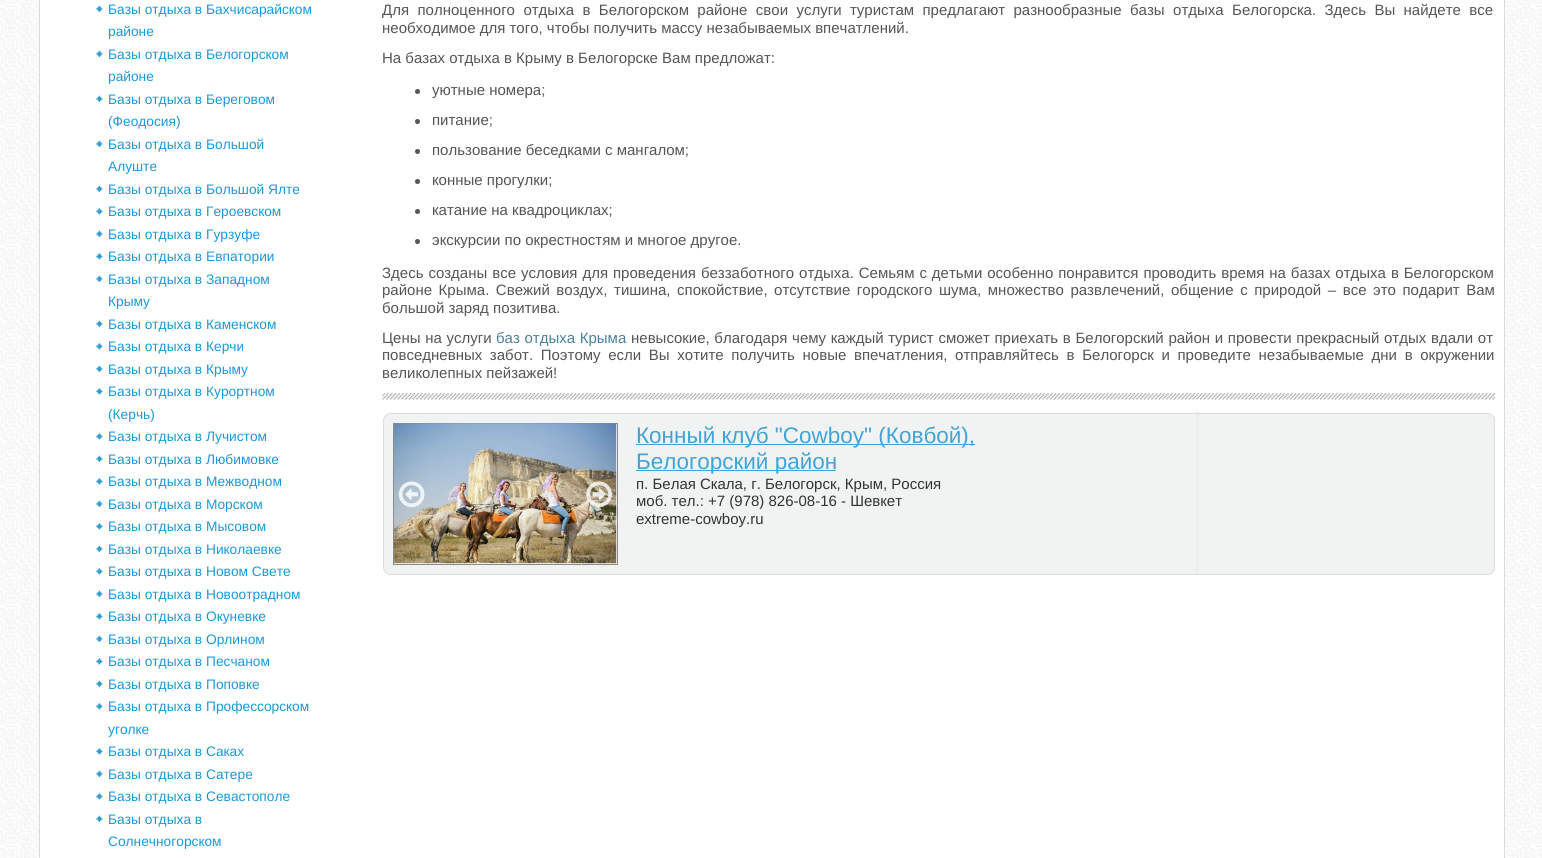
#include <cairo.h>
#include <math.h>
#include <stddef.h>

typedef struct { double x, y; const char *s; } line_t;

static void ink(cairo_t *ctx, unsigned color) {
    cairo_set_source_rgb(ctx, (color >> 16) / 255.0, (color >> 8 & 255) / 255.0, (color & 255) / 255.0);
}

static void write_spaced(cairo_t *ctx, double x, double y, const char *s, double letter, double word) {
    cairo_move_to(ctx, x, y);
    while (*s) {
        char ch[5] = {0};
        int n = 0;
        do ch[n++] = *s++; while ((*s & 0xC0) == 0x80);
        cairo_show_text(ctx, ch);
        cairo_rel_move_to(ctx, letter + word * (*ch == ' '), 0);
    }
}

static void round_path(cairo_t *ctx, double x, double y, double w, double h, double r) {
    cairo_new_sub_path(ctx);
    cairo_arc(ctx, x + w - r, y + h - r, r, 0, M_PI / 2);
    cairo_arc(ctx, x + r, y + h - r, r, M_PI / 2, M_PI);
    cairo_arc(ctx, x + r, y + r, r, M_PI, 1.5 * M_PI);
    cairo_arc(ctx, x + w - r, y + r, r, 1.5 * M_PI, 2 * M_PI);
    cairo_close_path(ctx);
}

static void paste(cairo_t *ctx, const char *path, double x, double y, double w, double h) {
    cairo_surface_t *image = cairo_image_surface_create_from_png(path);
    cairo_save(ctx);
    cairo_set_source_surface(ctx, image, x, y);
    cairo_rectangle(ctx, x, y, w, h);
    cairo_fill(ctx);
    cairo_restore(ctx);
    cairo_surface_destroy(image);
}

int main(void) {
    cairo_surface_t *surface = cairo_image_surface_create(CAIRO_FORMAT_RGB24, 1542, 858);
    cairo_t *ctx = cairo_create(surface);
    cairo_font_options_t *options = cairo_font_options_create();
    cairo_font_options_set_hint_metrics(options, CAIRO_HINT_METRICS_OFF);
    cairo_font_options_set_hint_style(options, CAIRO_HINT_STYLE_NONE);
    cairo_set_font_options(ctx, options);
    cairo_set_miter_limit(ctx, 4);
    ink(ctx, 0xFFFFFF);
    cairo_paint(ctx);
    paste(ctx, "media/1.png", 0, 0, 1542, 858);
    ink(ctx, 0xFFFFFF);
    cairo_rectangle(ctx, 39.5, -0.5, 1465, 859);
    cairo_fill_preserve(ctx);
    ink(ctx, 0xDBDBDB);
    cairo_set_line_width(ctx, 1);
    cairo_stroke(ctx);
    paste(ctx, "media/2.png", 96, 5, 7, 7);
    cairo_select_font_face(ctx, "Liberation Sans", CAIRO_FONT_SLANT_NORMAL, CAIRO_FONT_WEIGHT_NORMAL);
    cairo_set_font_size(ctx, 13.75);
    ink(ctx, 0x1A98D9);
    cairo_move_to(ctx, 108, 14);
    cairo_show_text(ctx, "Базы отдыха в Бахчисарайском");
    cairo_move_to(ctx, 108, 36);
    cairo_show_text(ctx, "районе");
    paste(ctx, "media/2.png", 96, 50, 7, 7);
    cairo_move_to(ctx, 108, 59);
    cairo_show_text(ctx, "Базы отдыха в Белогорском");
    cairo_move_to(ctx, 108, 81);
    cairo_show_text(ctx, "районе");
    paste(ctx, "media/2.png", 96, 95, 7, 7);
    cairo_move_to(ctx, 108, 104);
    cairo_show_text(ctx, "Базы отдыха в Береговом");
    cairo_move_to(ctx, 108, 126);
    cairo_show_text(ctx, "(Феодосия)");
    paste(ctx, "media/2.png", 96, 140, 7, 7);
    cairo_move_to(ctx, 108, 149);
    cairo_show_text(ctx, "Базы отдыха в Большой");
    cairo_move_to(ctx, 108, 171);
    cairo_show_text(ctx, "Алуште");
    paste(ctx, "media/2.png", 96, 185, 7, 7);
    cairo_move_to(ctx, 108, 194);
    cairo_show_text(ctx, "Базы отдыха в Большой Ялте");
    paste(ctx, "media/3.png", 96, 208, 7, 7);
    cairo_move_to(ctx, 108, 216);
    cairo_show_text(ctx, "Базы отдыха в Героевском");
    paste(ctx, "media/2.png", 96, 230, 7, 7);
    cairo_move_to(ctx, 108, 239);
    cairo_show_text(ctx, "Базы отдыха в Гурзуфе");
    paste(ctx, "media/3.png", 96, 253, 7, 7);
    cairo_move_to(ctx, 108, 261);
    cairo_show_text(ctx, "Базы отдыха в Евпатории");
    paste(ctx, "media/2.png", 96, 275, 7, 7);
    cairo_move_to(ctx, 108, 284);
    cairo_show_text(ctx, "Базы отдыха в Западном");
    cairo_move_to(ctx, 108, 306);
    cairo_show_text(ctx, "Крыму");
    paste(ctx, "media/2.png", 96, 320, 7, 7);
    cairo_move_to(ctx, 108, 329);
    cairo_show_text(ctx, "Базы отдыха в Каменском");
    paste(ctx, "media/3.png", 96, 343, 7, 7);
    cairo_move_to(ctx, 108, 351);
    cairo_show_text(ctx, "Базы отдыха в Керчи");
    paste(ctx, "media/2.png", 96, 365, 7, 7);
    cairo_move_to(ctx, 108, 374);
    cairo_show_text(ctx, "Базы отдыха в Крыму");
    paste(ctx, "media/3.png", 96, 388, 7, 7);
    cairo_move_to(ctx, 108, 396);
    cairo_show_text(ctx, "Базы отдыха в Курортном");
    cairo_move_to(ctx, 108, 419);
    cairo_show_text(ctx, "(Керчь)");
    paste(ctx, "media/3.png", 96, 433, 7, 7);
    cairo_move_to(ctx, 108, 441);
    cairo_show_text(ctx, "Базы отдыха в Лучистом");
    paste(ctx, "media/2.png", 96, 455, 7, 7);
    cairo_move_to(ctx, 108, 464);
    cairo_show_text(ctx, "Базы отдыха в Любимовке");
    paste(ctx, "media/3.png", 96, 478, 7, 7);
    cairo_move_to(ctx, 108, 486);
    cairo_show_text(ctx, "Базы отдыха в Межводном");
    paste(ctx, "media/2.png", 96, 500, 7, 7);
    cairo_move_to(ctx, 108, 509);
    cairo_show_text(ctx, "Базы отдыха в Морском");
    paste(ctx, "media/3.png", 96, 523, 7, 7);
    cairo_move_to(ctx, 108, 531);
    cairo_show_text(ctx, "Базы отдыха в Мысовом");
    paste(ctx, "media/2.png", 96, 545, 7, 7);
    cairo_move_to(ctx, 108, 554);
    cairo_show_text(ctx, "Базы отдыха в Николаевке");
    paste(ctx, "media/3.png", 96, 568, 7, 7);
    cairo_move_to(ctx, 108, 576);
    cairo_show_text(ctx, "Базы отдыха в Новом Свете");
    paste(ctx, "media/2.png", 96, 590, 7, 7);
    cairo_move_to(ctx, 108, 599);
    cairo_show_text(ctx, "Базы отдыха в Новоотрадном");
    paste(ctx, "media/3.png", 96, 613, 7, 7);
    cairo_move_to(ctx, 108, 621);
    cairo_show_text(ctx, "Базы отдыха в Окуневке");
    paste(ctx, "media/2.png", 96, 635, 7, 7);
    cairo_move_to(ctx, 108, 644);
    cairo_show_text(ctx, "Базы отдыха в Орлином");
    paste(ctx, "media/3.png", 96, 658, 7, 7);
    cairo_move_to(ctx, 108, 666);
    cairo_show_text(ctx, "Базы отдыха в Песчаном");
    paste(ctx, "media/2.png", 96, 680, 7, 7);
    cairo_move_to(ctx, 108, 689);
    cairo_show_text(ctx, "Базы отдыха в Поповке");
    paste(ctx, "media/3.png", 96, 703, 7, 7);
    cairo_move_to(ctx, 108, 711);
    cairo_show_text(ctx, "Базы отдыха в Профессорском");
    cairo_move_to(ctx, 108, 734);
    cairo_show_text(ctx, "уголке");
    paste(ctx, "media/3.png", 96, 748, 7, 7);
    cairo_move_to(ctx, 108, 756);
    cairo_show_text(ctx, "Базы отдыха в Саках");
    paste(ctx, "media/2.png", 96, 770, 7, 7);
    cairo_move_to(ctx, 108, 779);
    cairo_show_text(ctx, "Базы отдыха в Сатере");
    paste(ctx, "media/3.png", 96, 793, 7, 7);
    cairo_move_to(ctx, 108, 801);
    cairo_show_text(ctx, "Базы отдыха в Севастополе");
    paste(ctx, "media/2.png", 96, 815, 7, 7);
    cairo_move_to(ctx, 108, 824);
    cairo_show_text(ctx, "Базы отдыха в");
    cairo_move_to(ctx, 108, 846);
    cairo_show_text(ctx, "Солнечногорском");
    cairo_set_font_size(ctx, 15);
    ink(ctx, 0x555555);
    write_spaced(ctx, 382, 15, "Для полноценного отдыха в Белогорском районе свои услуги туристам предлагают разнообразные базы отдыха Белогорска. Здесь Вы найдете все", 0, 4.25);
    cairo_move_to(ctx, 382, 33);
    cairo_show_text(ctx, "необходимое для того, чтобы получить массу незабываемых впечатлений.");
    cairo_move_to(ctx, 382, 63);
    cairo_show_text(ctx, "На базах отдыха в Крыму в Белогорске Вам предложат:");
    cairo_new_path(ctx);
    cairo_arc(ctx, 417.5, 91.5, 2.5, 0, 2 * M_PI);
    cairo_fill(ctx);
    cairo_move_to(ctx, 432, 95);
    cairo_show_text(ctx, "уютные номера;");
    cairo_new_path(ctx);
    cairo_arc(ctx, 417.5, 121.5, 2.5, 0, 2 * M_PI);
    cairo_fill(ctx);
    cairo_move_to(ctx, 432, 125);
    cairo_show_text(ctx, "питание;");
    cairo_new_path(ctx);
    cairo_arc(ctx, 417.5, 151.5, 2.5, 0, 2 * M_PI);
    cairo_fill(ctx);
    cairo_move_to(ctx, 432, 155);
    cairo_show_text(ctx, "пользование беседками с мангалом;");
    cairo_new_path(ctx);
    cairo_arc(ctx, 417.5, 181.5, 2.5, 0, 2 * M_PI);
    cairo_fill(ctx);
    cairo_move_to(ctx, 432, 185);
    cairo_show_text(ctx, "конные прогулки;");
    cairo_new_path(ctx);
    cairo_arc(ctx, 417.5, 211.5, 2.5, 0, 2 * M_PI);
    cairo_fill(ctx);
    cairo_move_to(ctx, 432, 215);
    cairo_show_text(ctx, "катание на квадроциклах;");
    cairo_new_path(ctx);
    cairo_arc(ctx, 417.5, 241.5, 2.5, 0, 2 * M_PI);
    cairo_fill(ctx);
    cairo_move_to(ctx, 432, 245);
    cairo_show_text(ctx, "экскурсии по окрестностям и многое другое.");
    write_spaced(ctx, 382, 278, "Здесь созданы все условия для проведения беззаботного отдыха. Семьям с детьми особенно понравится проводить время на базах отдыха в Белогорском", 0, 0.75);
    write_spaced(ctx, 382, 295, "районе Крыма. Свежий воздух, тишина, спокойствие, отсутствие городского шума, множество развлечений, общение с природой – все это подарит Вам", 0, 2.4);
    cairo_move_to(ctx, 382, 313);
    cairo_show_text(ctx, "большой заряд позитива.");
    write_spaced(ctx, 382, 343, "Цены на услуги", 0, 0.5);
    ink(ctx, 0x49809C);
    write_spaced(ctx, 496, 343, "баз отдыха Крыма", 0, 0.5);
    ink(ctx, 0x555555);
    write_spaced(ctx, 631, 343, "невысокие, благодаря чему каждый турист сможет приехать в Белогорский район и провести прекрасный отдых вдали от", 0, 0.5);
    write_spaced(ctx, 382, 360, "повседневных забот. Поэтому если Вы хотите получить новые впечатления, отправляйтесь в Белогорск и проведите незабываемые дни в окружении", 0, 3.5);
    cairo_move_to(ctx, 382, 378);
    cairo_show_text(ctx, "великолепных пейзажей!");
    paste(ctx, "media/4.png", 382, 393, 1113, 7);
    ink(ctx, 0xF1F2F2);
    round_path(ctx, 383, 413, 1112, 162, 8);
    cairo_fill(ctx);
    ink(ctx, 0xEDEDED);
    cairo_rectangle(ctx, 1196, 412, 3, 162);
    cairo_fill(ctx);
    round_path(ctx, 383.5, 413.5, 1111, 161, 7.5);
    ink(ctx, 0xDCDCDC);
    cairo_stroke(ctx);
    ink(ctx, 0xFFFFFF);
    cairo_rectangle(ctx, 393.5, 423.5, 224, 141);
    cairo_fill_preserve(ctx);
    ink(ctx, 0x8A8A8A);
    cairo_stroke(ctx);
    paste(ctx, "media/5.png", 393, 423, 224, 141);
    paste(ctx, "media/6.png", 398, 481, 27, 27);
    paste(ctx, "media/7.png", 586, 481, 26, 27);
    ink(ctx, 0x41A4D5);
    cairo_rectangle(ctx, 636, 444, 339, 1);
    cairo_fill(ctx);
    cairo_set_font_size(ctx, 22.5);
    cairo_move_to(ctx, 636, 443);
    cairo_show_text(ctx, "Конный клуб \"Cowboy\" (Ковбой),");
    cairo_rectangle(ctx, 636, 470, 200, 1);
    cairo_fill(ctx);
    cairo_move_to(ctx, 636, 469);
    cairo_show_text(ctx, "Белогорский район");
    cairo_set_font_size(ctx, 15);
    ink(ctx, 0x333333);
    {
        static const line_t items[] = {
            {636, 489, "п. Белая Скала, г. Белогорск, Крым, Россия"},
            {636, 506, "моб. тел.: +7 (978) 826-08-16 - Шевкет"},
            {636, 524, "extreme-cowboy.ru"},
        };
        for (size_t i = 0; i < sizeof items / sizeof *items; i++) {
            cairo_move_to(ctx, items[i].x, items[i].y);
            cairo_show_text(ctx, items[i].s);
        }
    }
    cairo_surface_write_to_png(surface, "image.png");
    cairo_font_options_destroy(options);
    cairo_destroy(ctx);
    cairo_surface_destroy(surface);
    return 0;
}
